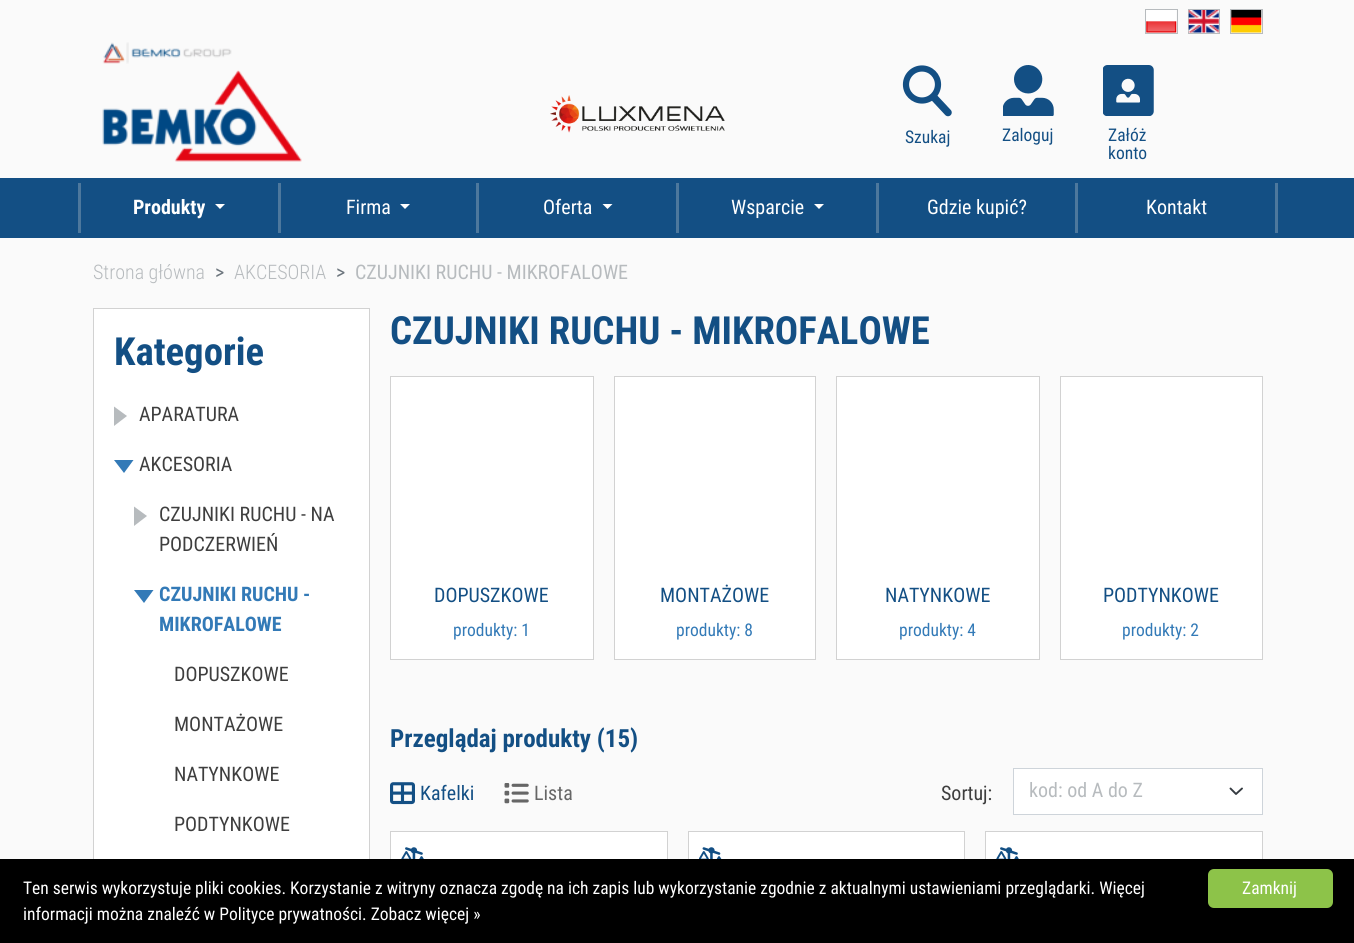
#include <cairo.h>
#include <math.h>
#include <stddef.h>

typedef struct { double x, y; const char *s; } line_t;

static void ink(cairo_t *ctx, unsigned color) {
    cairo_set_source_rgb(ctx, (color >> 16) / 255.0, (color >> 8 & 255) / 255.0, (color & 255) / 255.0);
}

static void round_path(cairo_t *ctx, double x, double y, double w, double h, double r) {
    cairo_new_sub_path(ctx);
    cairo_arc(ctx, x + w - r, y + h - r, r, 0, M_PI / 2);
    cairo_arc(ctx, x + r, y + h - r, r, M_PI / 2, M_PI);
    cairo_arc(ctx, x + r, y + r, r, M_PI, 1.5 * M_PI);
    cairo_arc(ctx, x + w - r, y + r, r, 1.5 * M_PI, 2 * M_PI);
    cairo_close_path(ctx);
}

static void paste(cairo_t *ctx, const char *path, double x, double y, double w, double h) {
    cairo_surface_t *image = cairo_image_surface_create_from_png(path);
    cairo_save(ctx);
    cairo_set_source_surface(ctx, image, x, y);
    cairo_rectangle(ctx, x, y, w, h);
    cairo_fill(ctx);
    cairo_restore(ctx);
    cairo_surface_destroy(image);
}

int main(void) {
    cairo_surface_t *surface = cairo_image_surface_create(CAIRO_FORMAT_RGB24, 1354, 943);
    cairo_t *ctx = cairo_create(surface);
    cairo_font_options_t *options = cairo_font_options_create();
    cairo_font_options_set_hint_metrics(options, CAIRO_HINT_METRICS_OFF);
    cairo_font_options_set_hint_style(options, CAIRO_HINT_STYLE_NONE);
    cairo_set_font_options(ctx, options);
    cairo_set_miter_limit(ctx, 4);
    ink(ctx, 0xFAFAFA);
    cairo_paint(ctx);
    cairo_rectangle(ctx, 1145.5, 9.5, 32, 24);
    ink(ctx, 0xB7BBBE);
    cairo_set_line_width(ctx, 1);
    cairo_stroke(ctx);
    paste(ctx, "media/1.png", 1146, 10, 31, 23);
    cairo_rectangle(ctx, 1188.5, 9.5, 31, 24);
    cairo_stroke(ctx);
    paste(ctx, "media/2.png", 1188, 10, 31, 23);
    cairo_rectangle(ctx, 1230.5, 9.5, 32, 24);
    cairo_stroke(ctx);
    paste(ctx, "media/3.png", 1231, 10, 31, 23);
    paste(ctx, "media/4.png", 102, 42, 200, 120);
    paste(ctx, "media/5.png", 550, 95, 175, 38);
    cairo_arc(ctx, 922, 84.5, 16, 0, 2 * M_PI);
    ink(ctx, 0x134F84);
    cairo_set_line_width(ctx, 6.2);
    cairo_stroke(ctx);
    cairo_new_path(ctx);
    cairo_move_to(ctx, 934, 97.5);
    cairo_line_to(ctx, 948, 112.5);
    cairo_set_line_width(ctx, 7.5);
    cairo_set_line_cap(ctx, CAIRO_LINE_CAP_ROUND);
    cairo_stroke(ctx);
    cairo_select_font_face(ctx, "Roboto Condensed", CAIRO_FONT_SLANT_NORMAL, CAIRO_FONT_WEIGHT_NORMAL);
    cairo_set_font_size(ctx, 17.5);
    cairo_move_to(ctx, 905, 143);
    cairo_show_text(ctx, "Szukaj");
    paste(ctx, "media/6.png", 1003, 65, 51, 51);
    cairo_move_to(ctx, 1002, 141);
    cairo_show_text(ctx, "Zaloguj");
    paste(ctx, "media/7.png", 1103, 65, 51, 51);
    cairo_move_to(ctx, 1108, 141);
    cairo_show_text(ctx, "Załóż");
    cairo_move_to(ctx, 1108, 159);
    cairo_show_text(ctx, "konto");
    cairo_rectangle(ctx, 0, 178, 1354, 60);
    cairo_fill(ctx);
    ink(ctx, 0x4D789D);
    cairo_rectangle(ctx, 78, 183, 3, 50);
    cairo_fill(ctx);
    cairo_select_font_face(ctx, "Roboto Condensed", CAIRO_FONT_SLANT_NORMAL, CAIRO_FONT_WEIGHT_BOLD);
    cairo_set_font_size(ctx, 20);
    ink(ctx, 0xFFFFFF);
    cairo_move_to(ctx, 133, 214);
    cairo_show_text(ctx, "Produkty");
    cairo_new_path(ctx);
    cairo_move_to(ctx, 215, 204);
    cairo_line_to(ctx, 225, 204);
    cairo_line_to(ctx, 220, 209);
    cairo_close_path(ctx);
    cairo_fill(ctx);
    ink(ctx, 0x4D789D);
    cairo_rectangle(ctx, 278, 183, 3, 50);
    cairo_fill(ctx);
    cairo_select_font_face(ctx, "Roboto Condensed", CAIRO_FONT_SLANT_NORMAL, CAIRO_FONT_WEIGHT_NORMAL);
    ink(ctx, 0xFFFFFF);
    cairo_move_to(ctx, 346, 214);
    cairo_show_text(ctx, "Firma");
    cairo_new_path(ctx);
    cairo_move_to(ctx, 400, 204);
    cairo_line_to(ctx, 410, 204);
    cairo_line_to(ctx, 405, 209);
    cairo_close_path(ctx);
    cairo_fill(ctx);
    ink(ctx, 0x4D789D);
    cairo_rectangle(ctx, 476, 183, 3, 50);
    cairo_fill(ctx);
    ink(ctx, 0xFFFFFF);
    cairo_move_to(ctx, 543, 214);
    cairo_show_text(ctx, "Oferta");
    cairo_new_path(ctx);
    cairo_move_to(ctx, 602.5, 204);
    cairo_line_to(ctx, 612.5, 204);
    cairo_line_to(ctx, 607.5, 209);
    cairo_close_path(ctx);
    cairo_fill(ctx);
    ink(ctx, 0x4D789D);
    cairo_rectangle(ctx, 676, 183, 3, 50);
    cairo_fill(ctx);
    ink(ctx, 0xFFFFFF);
    cairo_move_to(ctx, 731, 214);
    cairo_show_text(ctx, "Wsparcie");
    cairo_new_path(ctx);
    cairo_move_to(ctx, 814, 204);
    cairo_line_to(ctx, 824, 204);
    cairo_line_to(ctx, 819, 209);
    cairo_close_path(ctx);
    cairo_fill(ctx);
    ink(ctx, 0x4D789D);
    cairo_rectangle(ctx, 876, 183, 3, 50);
    cairo_fill(ctx);
    ink(ctx, 0xFFFFFF);
    cairo_move_to(ctx, 927, 214);
    cairo_show_text(ctx, "Gdzie kupić?");
    ink(ctx, 0x4D789D);
    cairo_rectangle(ctx, 1275, 183, 3, 50);
    cairo_fill(ctx);
    cairo_rectangle(ctx, 1075, 183, 3, 50);
    cairo_fill(ctx);
    ink(ctx, 0xFFFFFF);
    cairo_move_to(ctx, 1146, 214);
    cairo_show_text(ctx, "Kontakt");
    cairo_select_font_face(ctx, "Roboto Condensed Light", CAIRO_FONT_SLANT_NORMAL, CAIRO_FONT_WEIGHT_NORMAL);
    ink(ctx, 0xB7BBBE);
    cairo_move_to(ctx, 93, 279);
    cairo_show_text(ctx, "Strona główna");
    cairo_select_font_face(ctx, "Roboto Condensed", CAIRO_FONT_SLANT_NORMAL, CAIRO_FONT_WEIGHT_NORMAL);
    ink(ctx, 0x6C757D);
    cairo_move_to(ctx, 215, 279);
    cairo_show_text(ctx, ">");
    cairo_select_font_face(ctx, "Roboto Condensed Light", CAIRO_FONT_SLANT_NORMAL, CAIRO_FONT_WEIGHT_NORMAL);
    ink(ctx, 0xB7BBBE);
    cairo_move_to(ctx, 234, 279);
    cairo_show_text(ctx, "AKCESORIA");
    cairo_select_font_face(ctx, "Roboto Condensed", CAIRO_FONT_SLANT_NORMAL, CAIRO_FONT_WEIGHT_NORMAL);
    ink(ctx, 0x6C757D);
    cairo_move_to(ctx, 336, 279);
    cairo_show_text(ctx, ">");
    ink(ctx, 0xB7BBBE);
    cairo_move_to(ctx, 355, 279);
    cairo_show_text(ctx, "CZUJNIKI RUCHU - MIKROFALOWE");
    ink(ctx, 0xFFFFFF);
    cairo_rectangle(ctx, 94, 309, 275, 550);
    cairo_fill(ctx);
    cairo_rectangle(ctx, 93.5, 308.5, 276, 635);
    ink(ctx, 0xD2D2D2);
    cairo_set_line_width(ctx, 1);
    cairo_set_line_cap(ctx, CAIRO_LINE_CAP_BUTT);
    cairo_stroke(ctx);
    cairo_select_font_face(ctx, "Roboto Condensed", CAIRO_FONT_SLANT_NORMAL, CAIRO_FONT_WEIGHT_BOLD);
    cairo_set_font_size(ctx, 38.75);
    ink(ctx, 0x134F84);
    cairo_move_to(ctx, 114, 365);
    cairo_show_text(ctx, "Kategorie");
    ink(ctx, 0xB7BBBE);
    cairo_new_path(ctx);
    cairo_move_to(ctx, 127, 416);
    cairo_line_to(ctx, 114, 406.5);
    cairo_line_to(ctx, 114, 426);
    cairo_close_path(ctx);
    cairo_fill(ctx);
    cairo_select_font_face(ctx, "Roboto Condensed", CAIRO_FONT_SLANT_NORMAL, CAIRO_FONT_WEIGHT_NORMAL);
    cairo_set_font_size(ctx, 20);
    ink(ctx, 0x3E3E3E);
    cairo_move_to(ctx, 139, 421);
    cairo_show_text(ctx, "APARATURA");
    ink(ctx, 0x337AB7);
    cairo_new_path(ctx);
    cairo_move_to(ctx, 124, 473);
    cairo_line_to(ctx, 133.5, 460);
    cairo_line_to(ctx, 114, 460);
    cairo_close_path(ctx);
    cairo_fill(ctx);
    ink(ctx, 0x3E3E3E);
    cairo_move_to(ctx, 139, 471);
    cairo_show_text(ctx, "AKCESORIA");
    ink(ctx, 0xB7BBBE);
    cairo_new_path(ctx);
    cairo_move_to(ctx, 147, 516);
    cairo_line_to(ctx, 134, 506.5);
    cairo_line_to(ctx, 134, 526);
    cairo_close_path(ctx);
    cairo_fill(ctx);
    ink(ctx, 0x3E3E3E);
    cairo_move_to(ctx, 159, 521);
    cairo_show_text(ctx, "CZUJNIKI RUCHU - NA");
    cairo_move_to(ctx, 159, 551);
    cairo_show_text(ctx, "PODCZERWIEŃ");
    ink(ctx, 0x337AB7);
    cairo_new_path(ctx);
    cairo_move_to(ctx, 144, 603);
    cairo_line_to(ctx, 153.5, 590);
    cairo_line_to(ctx, 134, 590);
    cairo_close_path(ctx);
    cairo_fill(ctx);
    cairo_select_font_face(ctx, "Roboto Condensed", CAIRO_FONT_SLANT_NORMAL, CAIRO_FONT_WEIGHT_BOLD);
    cairo_move_to(ctx, 159, 601);
    cairo_show_text(ctx, "CZUJNIKI RUCHU -");
    cairo_move_to(ctx, 159, 631);
    cairo_show_text(ctx, "MIKROFALOWE");
    cairo_select_font_face(ctx, "Roboto Condensed", CAIRO_FONT_SLANT_NORMAL, CAIRO_FONT_WEIGHT_NORMAL);
    ink(ctx, 0x3E3E3E);
    {
        static const line_t items[] = {
            {174, 681, "DOPUSZKOWE"},
            {174, 731, "MONTAŻOWE"},
            {174, 781, "NATYNKOWE"},
            {174, 831, "PODTYNKOWE"},
        };
        for (size_t i = 0; i < sizeof items / sizeof *items; i++) {
            cairo_move_to(ctx, items[i].x, items[i].y);
            cairo_show_text(ctx, items[i].s);
        }
    }
    cairo_select_font_face(ctx, "Roboto Condensed", CAIRO_FONT_SLANT_NORMAL, CAIRO_FONT_WEIGHT_BOLD);
    cairo_set_font_size(ctx, 38.75);
    ink(ctx, 0x134F84);
    cairo_move_to(ctx, 390, 344);
    cairo_show_text(ctx, "CZUJNIKI RUCHU - MIKROFALOWE");
    ink(ctx, 0xFFFFFF);
    cairo_rectangle(ctx, 390.5, 376.5, 203, 283);
    cairo_fill_preserve(ctx);
    ink(ctx, 0xD2D2D2);
    cairo_stroke(ctx);
    cairo_select_font_face(ctx, "Roboto Condensed", CAIRO_FONT_SLANT_NORMAL, CAIRO_FONT_WEIGHT_NORMAL);
    cairo_set_font_size(ctx, 20);
    ink(ctx, 0x134F84);
    cairo_move_to(ctx, 434, 602);
    cairo_show_text(ctx, "DOPUSZKOWE");
    cairo_set_font_size(ctx, 17.5);
    ink(ctx, 0x337AB7);
    cairo_move_to(ctx, 453, 636);
    cairo_show_text(ctx, "produkty: 1");
    ink(ctx, 0xFFFFFF);
    cairo_rectangle(ctx, 614.5, 376.5, 201, 283);
    cairo_fill_preserve(ctx);
    ink(ctx, 0xD2D2D2);
    cairo_stroke(ctx);
    cairo_set_font_size(ctx, 20);
    ink(ctx, 0x134F84);
    cairo_move_to(ctx, 660, 602);
    cairo_show_text(ctx, "MONTAŻOWE");
    cairo_set_font_size(ctx, 17.5);
    ink(ctx, 0x337AB7);
    cairo_move_to(ctx, 676, 636);
    cairo_show_text(ctx, "produkty: 8");
    ink(ctx, 0xFFFFFF);
    cairo_rectangle(ctx, 836.5, 376.5, 203, 283);
    cairo_fill_preserve(ctx);
    ink(ctx, 0xD2D2D2);
    cairo_stroke(ctx);
    cairo_set_font_size(ctx, 20);
    ink(ctx, 0x134F84);
    cairo_move_to(ctx, 885, 602);
    cairo_show_text(ctx, "NATYNKOWE");
    cairo_set_font_size(ctx, 17.5);
    ink(ctx, 0x337AB7);
    cairo_move_to(ctx, 899, 636);
    cairo_show_text(ctx, "produkty: 4");
    ink(ctx, 0xFFFFFF);
    cairo_rectangle(ctx, 1060.5, 376.5, 202, 283);
    cairo_fill_preserve(ctx);
    ink(ctx, 0xD2D2D2);
    cairo_stroke(ctx);
    cairo_set_font_size(ctx, 20);
    ink(ctx, 0x134F84);
    cairo_move_to(ctx, 1103, 602);
    cairo_show_text(ctx, "PODTYNKOWE");
    cairo_set_font_size(ctx, 17.5);
    ink(ctx, 0x337AB7);
    cairo_move_to(ctx, 1122, 636);
    cairo_show_text(ctx, "produkty: 2");
    cairo_select_font_face(ctx, "Roboto Condensed", CAIRO_FONT_SLANT_NORMAL, CAIRO_FONT_WEIGHT_BOLD);
    cairo_set_font_size(ctx, 25);
    ink(ctx, 0x134F84);
    cairo_move_to(ctx, 390, 747);
    cairo_show_text(ctx, "Przeglądaj produkty (15)");
    paste(ctx, "media/8.png", 390, 782, 25, 23);
    cairo_select_font_face(ctx, "Roboto Condensed", CAIRO_FONT_SLANT_NORMAL, CAIRO_FONT_WEIGHT_NORMAL);
    cairo_set_font_size(ctx, 20);
    cairo_move_to(ctx, 420, 800);
    cairo_show_text(ctx, "Kafelki");
    paste(ctx, "media/9.png", 504, 783, 25, 21);
    ink(ctx, 0x666666);
    cairo_move_to(ctx, 534, 800);
    cairo_show_text(ctx, "Lista");
    ink(ctx, 0x3E3E3E);
    cairo_move_to(ctx, 941, 800);
    cairo_show_text(ctx, "Sortuj:");
    ink(ctx, 0xFFFFFF);
    cairo_rectangle(ctx, 1014, 769, 248, 45);
    cairo_fill(ctx);
    cairo_new_path(ctx);
    cairo_move_to(ctx, 1230.5, 788.5);
    cairo_line_to(ctx, 1236, 794);
    cairo_line_to(ctx, 1242, 788.5);
    ink(ctx, 0x343A40);
    cairo_set_line_width(ctx, 1.9);
    cairo_set_line_cap(ctx, CAIRO_LINE_CAP_ROUND);
    cairo_set_line_join(ctx, CAIRO_LINE_JOIN_ROUND);
    cairo_stroke(ctx);
    cairo_rectangle(ctx, 1013.5, 768.5, 249, 46);
    ink(ctx, 0xCED4DA);
    cairo_set_line_width(ctx, 1);
    cairo_set_line_cap(ctx, CAIRO_LINE_CAP_BUTT);
    cairo_set_line_join(ctx, CAIRO_LINE_JOIN_MITER);
    cairo_stroke(ctx);
    ink(ctx, 0xB7BBBE);
    cairo_move_to(ctx, 1029, 797);
    cairo_show_text(ctx, "kod: od A do Z");
    ink(ctx, 0xFFFFFF);
    cairo_rectangle(ctx, 391, 832, 276, 27);
    cairo_fill(ctx);
    cairo_rectangle(ctx, 390.5, 831.5, 277, 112);
    ink(ctx, 0xD2D2D2);
    cairo_stroke(ctx);
    paste(ctx, "media/10.png", 401, 847, 23, 12);
    ink(ctx, 0xFFFFFF);
    cairo_rectangle(ctx, 689, 832, 275, 27);
    cairo_fill(ctx);
    cairo_rectangle(ctx, 688.5, 831.5, 276, 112);
    ink(ctx, 0xD2D2D2);
    cairo_stroke(ctx);
    paste(ctx, "media/11.png", 699, 847, 23, 12);
    ink(ctx, 0xFFFFFF);
    cairo_rectangle(ctx, 986, 832, 276, 27);
    cairo_fill(ctx);
    cairo_rectangle(ctx, 985.5, 831.5, 277, 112);
    ink(ctx, 0xD2D2D2);
    cairo_stroke(ctx);
    paste(ctx, "media/10.png", 996, 847, 23, 12);
    ink(ctx, 0x000000);
    cairo_rectangle(ctx, 0, 859, 1354, 84);
    cairo_fill(ctx);
    cairo_set_font_size(ctx, 17.5);
    ink(ctx, 0xFFFFFF);
    cairo_move_to(ctx, 23, 894);
    cairo_show_text(ctx, "Ten serwis wykorzystuje pliki cookies. Korzystanie z witryny oznacza zgodę na ich zapis lub wykorzystanie zgodnie z aktualnymi ustawieniami przeglądarki. Więcej");
    cairo_move_to(ctx, 23, 920);
    cairo_show_text(ctx, "informacji można znaleźć w Polityce prywatności. Zobacz więcej »");
    ink(ctx, 0x8DC349);
    round_path(ctx, 1208, 869, 125, 39, 6);
    cairo_fill(ctx);
    ink(ctx, 0xFFFFFF);
    cairo_move_to(ctx, 1242, 894);
    cairo_show_text(ctx, "Zamknij");
    cairo_surface_write_to_png(surface, "image.png");
    cairo_font_options_destroy(options);
    cairo_destroy(ctx);
    cairo_surface_destroy(surface);
    return 0;
}
